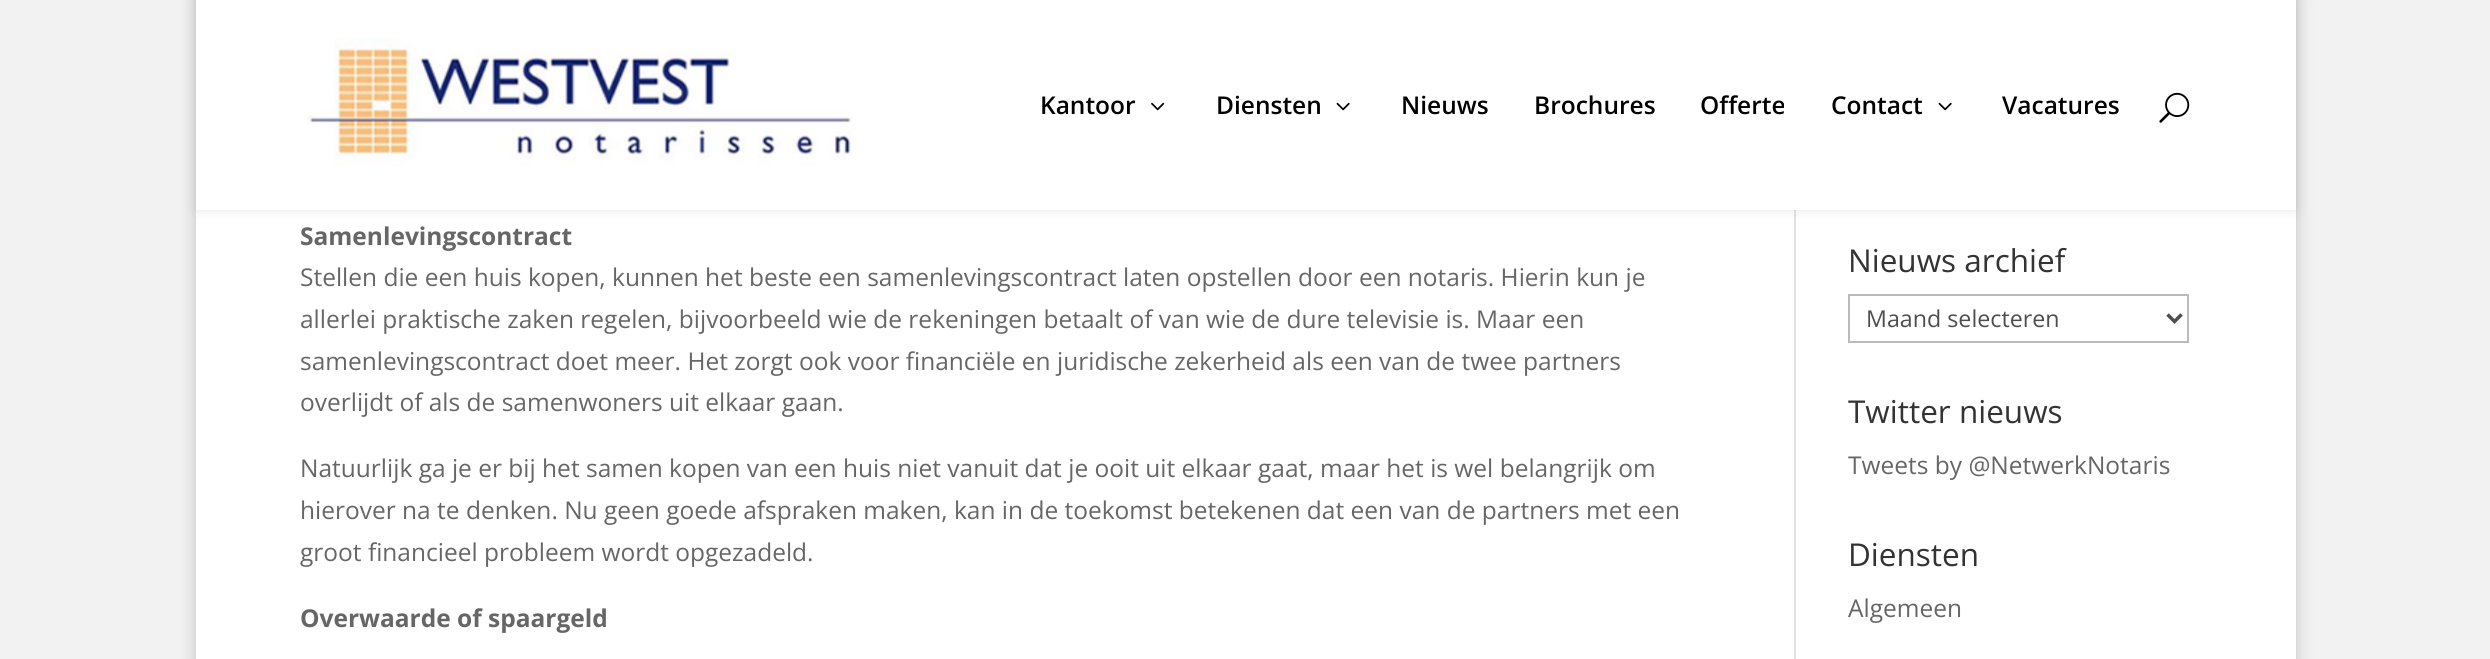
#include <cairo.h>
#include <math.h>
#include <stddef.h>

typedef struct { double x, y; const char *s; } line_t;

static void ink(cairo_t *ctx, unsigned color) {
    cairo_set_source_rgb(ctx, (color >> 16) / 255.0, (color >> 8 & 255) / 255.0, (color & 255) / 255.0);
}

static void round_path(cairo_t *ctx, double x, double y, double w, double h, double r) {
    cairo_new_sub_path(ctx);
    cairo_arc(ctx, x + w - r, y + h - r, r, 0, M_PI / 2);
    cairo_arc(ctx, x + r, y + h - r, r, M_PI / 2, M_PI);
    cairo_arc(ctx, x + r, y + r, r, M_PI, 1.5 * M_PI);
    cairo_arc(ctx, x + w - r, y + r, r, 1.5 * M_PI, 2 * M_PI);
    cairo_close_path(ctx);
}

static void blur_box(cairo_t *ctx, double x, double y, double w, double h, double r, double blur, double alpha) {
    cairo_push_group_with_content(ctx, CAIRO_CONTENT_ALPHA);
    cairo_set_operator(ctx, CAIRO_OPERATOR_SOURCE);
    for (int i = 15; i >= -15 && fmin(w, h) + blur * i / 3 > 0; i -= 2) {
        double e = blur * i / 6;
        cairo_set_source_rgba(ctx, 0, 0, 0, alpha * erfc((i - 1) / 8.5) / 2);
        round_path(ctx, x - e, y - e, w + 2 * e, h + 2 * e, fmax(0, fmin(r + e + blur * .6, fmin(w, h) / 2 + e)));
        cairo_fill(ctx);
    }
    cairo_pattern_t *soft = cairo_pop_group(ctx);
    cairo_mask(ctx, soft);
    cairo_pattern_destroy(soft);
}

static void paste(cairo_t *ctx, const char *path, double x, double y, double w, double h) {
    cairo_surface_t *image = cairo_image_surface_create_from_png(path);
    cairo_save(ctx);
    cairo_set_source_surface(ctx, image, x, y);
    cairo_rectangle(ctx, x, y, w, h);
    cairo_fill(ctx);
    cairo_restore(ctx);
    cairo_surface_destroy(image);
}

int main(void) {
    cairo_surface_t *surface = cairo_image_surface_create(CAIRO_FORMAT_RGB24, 2490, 659);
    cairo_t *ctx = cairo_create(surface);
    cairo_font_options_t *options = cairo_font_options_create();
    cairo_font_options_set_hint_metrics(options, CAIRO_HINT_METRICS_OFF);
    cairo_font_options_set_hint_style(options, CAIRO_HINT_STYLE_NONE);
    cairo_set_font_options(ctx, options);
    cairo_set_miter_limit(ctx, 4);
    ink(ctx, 0xF2F2F2);
    cairo_paint(ctx);
    ink(ctx, 0x000000);
    blur_box(ctx, 196, -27, 2100, 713, 0, 9, 0.2);
    ink(ctx, 0xFFFFFF);
    cairo_rectangle(ctx, 196, 210, 2100, 449);
    cairo_fill(ctx);
    ink(ctx, 0xE2E2E2);
    cairo_rectangle(ctx, 1794, 210, 2, 449);
    cairo_fill(ctx);
    ink(ctx, 0x000000);
    blur_box(ctx, 196, 0, 2100, 210, 0, 6, 0.1);
    ink(ctx, 0xFFFFFF);
    cairo_rectangle(ctx, 196, 0, 2100, 210);
    cairo_fill(ctx);
    paste(ctx, "media/1.png", 306, 37, 552, 129);
    cairo_select_font_face(ctx, "Open Sans SemiBold", CAIRO_FONT_SLANT_NORMAL, CAIRO_FONT_WEIGHT_NORMAL);
    cairo_set_font_size(ctx, 24.5);
    ink(ctx, 0x000000);
    cairo_move_to(ctx, 1040, 114);
    cairo_show_text(ctx, "Kantoor");
    paste(ctx, "media/2.png", 1151, 102, 14, 9);
    cairo_move_to(ctx, 1216, 114);
    cairo_show_text(ctx, "Diensten");
    paste(ctx, "media/3.png", 1336, 102, 14, 9);
    {
        static const line_t items[] = {
            {1401, 114, "Nieuws"},
            {1534, 114, "Brochures"},
            {1700, 114, "Offerte"},
            {1831, 114, "Contact"},
        };
        for (size_t i = 0; i < sizeof items / sizeof *items; i++) {
            cairo_move_to(ctx, items[i].x, items[i].y);
            cairo_show_text(ctx, items[i].s);
        }
    }
    paste(ctx, "media/3.png", 1938, 102, 14, 9);
    cairo_move_to(ctx, 2002, 114);
    cairo_show_text(ctx, "Vacatures");
    paste(ctx, "media/4.png", 2159, 92, 31, 31);
    cairo_select_font_face(ctx, "Open Sans", CAIRO_FONT_SLANT_NORMAL, CAIRO_FONT_WEIGHT_BOLD);
    ink(ctx, 0x666666);
    cairo_move_to(ctx, 300, 245);
    cairo_show_text(ctx, "Samenlevingscontract");
    cairo_select_font_face(ctx, "Open Sans", CAIRO_FONT_SLANT_NORMAL, CAIRO_FONT_WEIGHT_NORMAL);
    {
        static const line_t items[] = {
            {300, 286, "Stellen die een huis kopen, kunnen het beste een samenlevingscontract laten opstellen door een notaris. Hierin kun je"},
            {300, 328, "allerlei praktische zaken regelen, bijvoorbeeld wie de rekeningen betaalt of van wie de dure televisie is. Maar een"},
            {300, 370, "samenlevingscontract doet meer. Het zorgt ook voor financiële en juridische zekerheid als een van de twee partners"},
            {300, 411, "overlijdt of als de samenwoners uit elkaar gaan."},
            {300, 477, "Natuurlijk ga je er bij het samen kopen van een huis niet vanuit dat je ooit uit elkaar gaat, maar het is wel belangrijk om"},
            {300, 519, "hierover na te denken. Nu geen goede afspraken maken, kan in de toekomst betekenen dat een van de partners met een"},
            {300, 561, "groot financieel probleem wordt opgezadeld."},
        };
        for (size_t i = 0; i < sizeof items / sizeof *items; i++) {
            cairo_move_to(ctx, items[i].x, items[i].y);
            cairo_show_text(ctx, items[i].s);
        }
    }
    cairo_select_font_face(ctx, "Open Sans", CAIRO_FONT_SLANT_NORMAL, CAIRO_FONT_WEIGHT_BOLD);
    cairo_move_to(ctx, 300, 627);
    cairo_show_text(ctx, "Overwaarde of spaargeld");
    cairo_select_font_face(ctx, "Open Sans", CAIRO_FONT_SLANT_NORMAL, CAIRO_FONT_WEIGHT_NORMAL);
    cairo_set_font_size(ctx, 31.5);
    ink(ctx, 0x333333);
    cairo_move_to(ctx, 1848, 272);
    cairo_show_text(ctx, "Nieuws archief");
    cairo_rectangle(ctx, 1849, 295, 339, 47);
    ink(ctx, 0xBBBBBB);
    cairo_stroke(ctx);
    cairo_new_path(ctx);
    cairo_move_to(ctx, 2167.5, 314.5);
    cairo_line_to(ctx, 2174.5, 321.5);
    cairo_line_to(ctx, 2181.5, 314.5);
    ink(ctx, 0x4E4E4E);
    cairo_set_line_width(ctx, 3.5);
    cairo_stroke(ctx);
    cairo_set_font_size(ctx, 23.25);
    cairo_move_to(ctx, 1866, 327);
    cairo_show_text(ctx, "Maand selecteren");
    cairo_set_font_size(ctx, 31.5);
    ink(ctx, 0x333333);
    cairo_move_to(ctx, 1848, 423);
    cairo_show_text(ctx, "Twitter nieuws");
    cairo_set_font_size(ctx, 24.5);
    ink(ctx, 0x666666);
    cairo_move_to(ctx, 1848, 474);
    cairo_show_text(ctx, "Tweets by @NetwerkNotaris");
    cairo_set_font_size(ctx, 31.5);
    ink(ctx, 0x333333);
    cairo_move_to(ctx, 1848, 566);
    cairo_show_text(ctx, "Diensten");
    cairo_set_font_size(ctx, 24.5);
    ink(ctx, 0x666666);
    cairo_move_to(ctx, 1848, 617);
    cairo_show_text(ctx, "Algemeen");
    cairo_surface_write_to_png(surface, "image.png");
    cairo_font_options_destroy(options);
    cairo_destroy(ctx);
    cairo_surface_destroy(surface);
    return 0;
}
